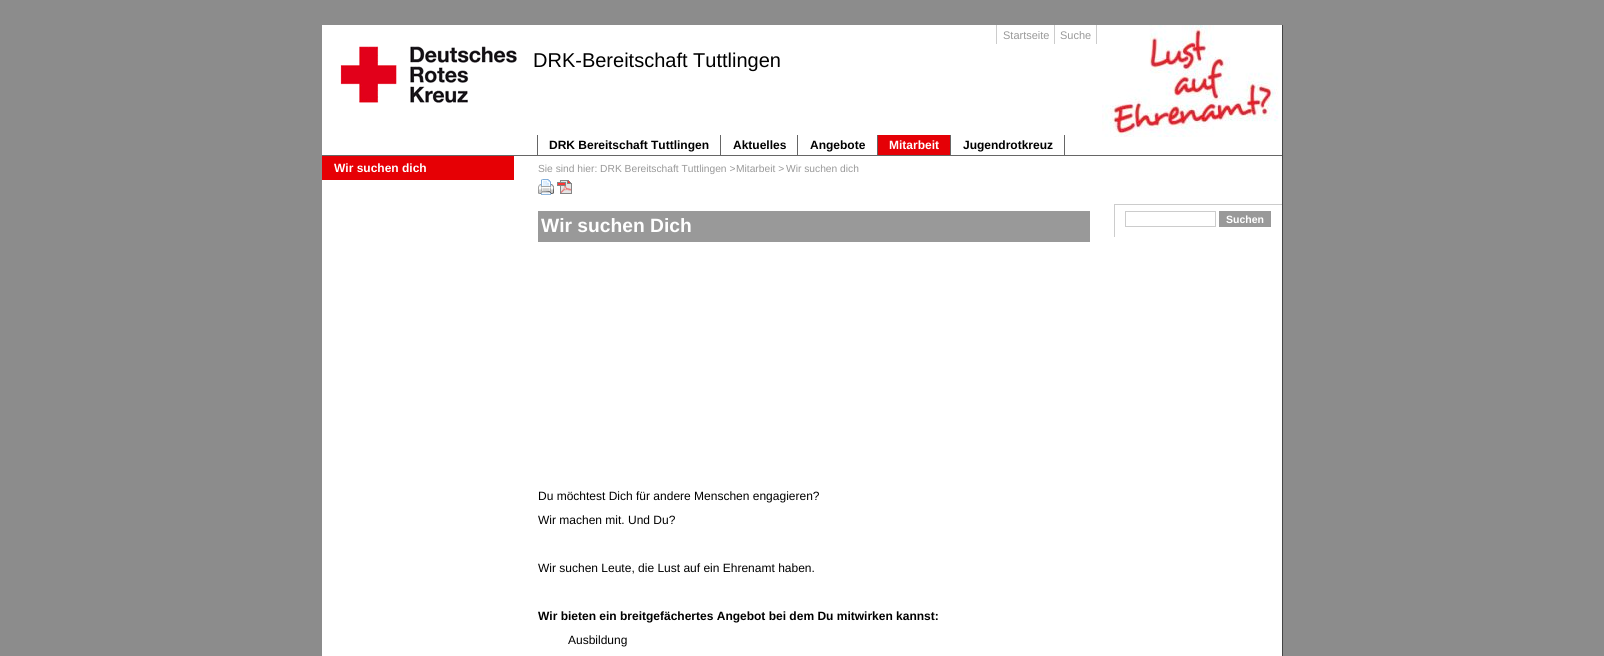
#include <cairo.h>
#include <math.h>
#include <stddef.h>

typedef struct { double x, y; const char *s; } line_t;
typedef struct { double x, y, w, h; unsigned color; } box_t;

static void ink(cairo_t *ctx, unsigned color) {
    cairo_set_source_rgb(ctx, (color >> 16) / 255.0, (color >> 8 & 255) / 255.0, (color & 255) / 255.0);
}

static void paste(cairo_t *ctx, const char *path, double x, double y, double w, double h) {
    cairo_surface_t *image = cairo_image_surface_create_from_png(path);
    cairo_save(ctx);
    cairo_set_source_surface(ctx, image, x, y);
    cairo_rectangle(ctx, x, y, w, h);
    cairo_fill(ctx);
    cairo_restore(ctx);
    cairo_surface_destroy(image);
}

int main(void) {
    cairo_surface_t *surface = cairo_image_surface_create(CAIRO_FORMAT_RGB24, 1604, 656);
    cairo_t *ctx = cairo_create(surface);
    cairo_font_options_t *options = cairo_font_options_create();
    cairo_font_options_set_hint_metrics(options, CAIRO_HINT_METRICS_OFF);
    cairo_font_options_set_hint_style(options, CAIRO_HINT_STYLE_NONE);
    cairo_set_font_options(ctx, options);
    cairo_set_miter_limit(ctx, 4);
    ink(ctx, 0x8C8C8C);
    cairo_paint(ctx);
    {
        static const box_t items[] = {
            {322, 25, 960, 631, 0xFFFFFF},
            {1282, 25, 1, 631, 0x444444},
            {1054, 25, 1, 19, 0xCCCCCC},
            {996, 25, 1, 19, 0xCCCCCC},
        };
        for (size_t i = 0; i < sizeof items / sizeof *items; i++) {
            ink(ctx, items[i].color);
            cairo_rectangle(ctx, items[i].x, items[i].y, items[i].w, items[i].h);
            cairo_fill(ctx);
        }
    }
    cairo_select_font_face(ctx, "Liberation Sans", CAIRO_FONT_SLANT_NORMAL, CAIRO_FONT_WEIGHT_NORMAL);
    cairo_set_font_size(ctx, 11);
    ink(ctx, 0x999999);
    cairo_move_to(ctx, 1003, 39);
    cairo_show_text(ctx, "Startseite");
    ink(ctx, 0xCCCCCC);
    cairo_rectangle(ctx, 1096, 25, 1, 19);
    cairo_fill(ctx);
    ink(ctx, 0x999999);
    cairo_move_to(ctx, 1060, 39);
    cairo_show_text(ctx, "Suche");
    paste(ctx, "media/1.png", 1102, 25, 177, 112);
    paste(ctx, "media/2.png", 340, 46, 177, 57);
    cairo_set_font_size(ctx, 20);
    ink(ctx, 0x000000);
    cairo_move_to(ctx, 533, 67);
    cairo_show_text(ctx, "DRK-Bereitschaft Tuttlingen");
    {
        static const box_t items[] = {
            {322, 155, 960, 1, 0x666666},
            {720, 135, 1, 20, 0x666666},
            {537, 135, 1, 20, 0x666666},
        };
        for (size_t i = 0; i < sizeof items / sizeof *items; i++) {
            ink(ctx, items[i].color);
            cairo_rectangle(ctx, items[i].x, items[i].y, items[i].w, items[i].h);
            cairo_fill(ctx);
        }
    }
    cairo_select_font_face(ctx, "Liberation Sans", CAIRO_FONT_SLANT_NORMAL, CAIRO_FONT_WEIGHT_BOLD);
    cairo_set_font_size(ctx, 12);
    ink(ctx, 0x000000);
    cairo_move_to(ctx, 549, 149);
    cairo_show_text(ctx, "DRK Bereitschaft Tuttlingen");
    ink(ctx, 0x666666);
    cairo_rectangle(ctx, 797, 135, 1, 20);
    cairo_fill(ctx);
    ink(ctx, 0x000000);
    cairo_move_to(ctx, 733, 149);
    cairo_show_text(ctx, "Aktuelles");
    ink(ctx, 0x666666);
    cairo_rectangle(ctx, 877, 135, 1, 20);
    cairo_fill(ctx);
    ink(ctx, 0x000000);
    cairo_move_to(ctx, 810, 149);
    cairo_show_text(ctx, "Angebote");
    ink(ctx, 0x666666);
    cairo_rectangle(ctx, 950, 135, 1, 20);
    cairo_fill(ctx);
    ink(ctx, 0xE50006);
    cairo_rectangle(ctx, 878, 135, 72, 20);
    cairo_fill(ctx);
    ink(ctx, 0xFFFFFF);
    cairo_move_to(ctx, 889, 149);
    cairo_show_text(ctx, "Mitarbeit");
    ink(ctx, 0x666666);
    cairo_rectangle(ctx, 1064, 135, 1, 20);
    cairo_fill(ctx);
    ink(ctx, 0x000000);
    cairo_move_to(ctx, 963, 149);
    cairo_show_text(ctx, "Jugendrotkreuz");
    ink(ctx, 0xE60005);
    cairo_rectangle(ctx, 322, 156, 192, 24);
    cairo_fill(ctx);
    ink(ctx, 0xFFFFFF);
    cairo_move_to(ctx, 334, 172);
    cairo_show_text(ctx, "Wir suchen dich");
    cairo_select_font_face(ctx, "Liberation Sans", CAIRO_FONT_SLANT_NORMAL, CAIRO_FONT_WEIGHT_NORMAL);
    cairo_set_font_size(ctx, 10.25);
    ink(ctx, 0x999999);
    {
        static const line_t items[] = {
            {538, 172, "Sie sind hier: DRK Bereitschaft Tuttlingen >"},
            {736, 172, "Mitarbeit >"},
            {786, 172, "Wir suchen dich"},
        };
        for (size_t i = 0; i < sizeof items / sizeof *items; i++) {
            cairo_move_to(ctx, items[i].x, items[i].y);
            cairo_show_text(ctx, items[i].s);
        }
    }
    paste(ctx, "media/3.png", 538, 179, 16, 16);
    paste(ctx, "media/4.png", 557, 180, 15, 14);
    cairo_rectangle(ctx, 538, 211, 552, 31);
    cairo_fill(ctx);
    cairo_select_font_face(ctx, "Liberation Sans", CAIRO_FONT_SLANT_NORMAL, CAIRO_FONT_WEIGHT_BOLD);
    cairo_set_font_size(ctx, 19.25);
    ink(ctx, 0xFFFFFF);
    cairo_move_to(ctx, 541, 232);
    cairo_show_text(ctx, "Wir suchen Dich");
    cairo_select_font_face(ctx, "Liberation Sans", CAIRO_FONT_SLANT_NORMAL, CAIRO_FONT_WEIGHT_NORMAL);
    cairo_set_font_size(ctx, 12);
    ink(ctx, 0x000000);
    {
        static const line_t items[] = {
            {538, 500, "Du möchtest Dich für andere Menschen engagieren?"},
            {538, 524, "Wir machen mit. Und Du?"},
            {538, 572, "Wir suchen Leute, die Lust auf ein Ehrenamt haben."},
        };
        for (size_t i = 0; i < sizeof items / sizeof *items; i++) {
            cairo_move_to(ctx, items[i].x, items[i].y);
            cairo_show_text(ctx, items[i].s);
        }
    }
    cairo_select_font_face(ctx, "Liberation Sans", CAIRO_FONT_SLANT_NORMAL, CAIRO_FONT_WEIGHT_BOLD);
    cairo_move_to(ctx, 538, 620);
    cairo_show_text(ctx, "Wir bieten ein breitgefächertes Angebot bei dem Du mitwirken kannst:");
    cairo_select_font_face(ctx, "Liberation Sans", CAIRO_FONT_SLANT_NORMAL, CAIRO_FONT_WEIGHT_NORMAL);
    cairo_move_to(ctx, 568, 644);
    cairo_show_text(ctx, "Ausbildung");
    ink(ctx, 0xCCCCCC);
    cairo_rectangle(ctx, 1114, 204, 168, 1);
    cairo_fill(ctx);
    cairo_rectangle(ctx, 1114, 204, 1, 33);
    cairo_fill(ctx);
    cairo_rectangle(ctx, 1125.5, 211.5, 90, 15);
    cairo_set_line_width(ctx, 1);
    cairo_stroke(ctx);
    ink(ctx, 0x999999);
    cairo_rectangle(ctx, 1219, 211, 52, 16);
    cairo_fill(ctx);
    cairo_select_font_face(ctx, "Liberation Sans", CAIRO_FONT_SLANT_NORMAL, CAIRO_FONT_WEIGHT_BOLD);
    cairo_set_font_size(ctx, 10.5);
    ink(ctx, 0xFFFFFF);
    cairo_move_to(ctx, 1226, 223);
    cairo_show_text(ctx, "Suchen");
    cairo_surface_write_to_png(surface, "image.png");
    cairo_font_options_destroy(options);
    cairo_destroy(ctx);
    cairo_surface_destroy(surface);
    return 0;
}
